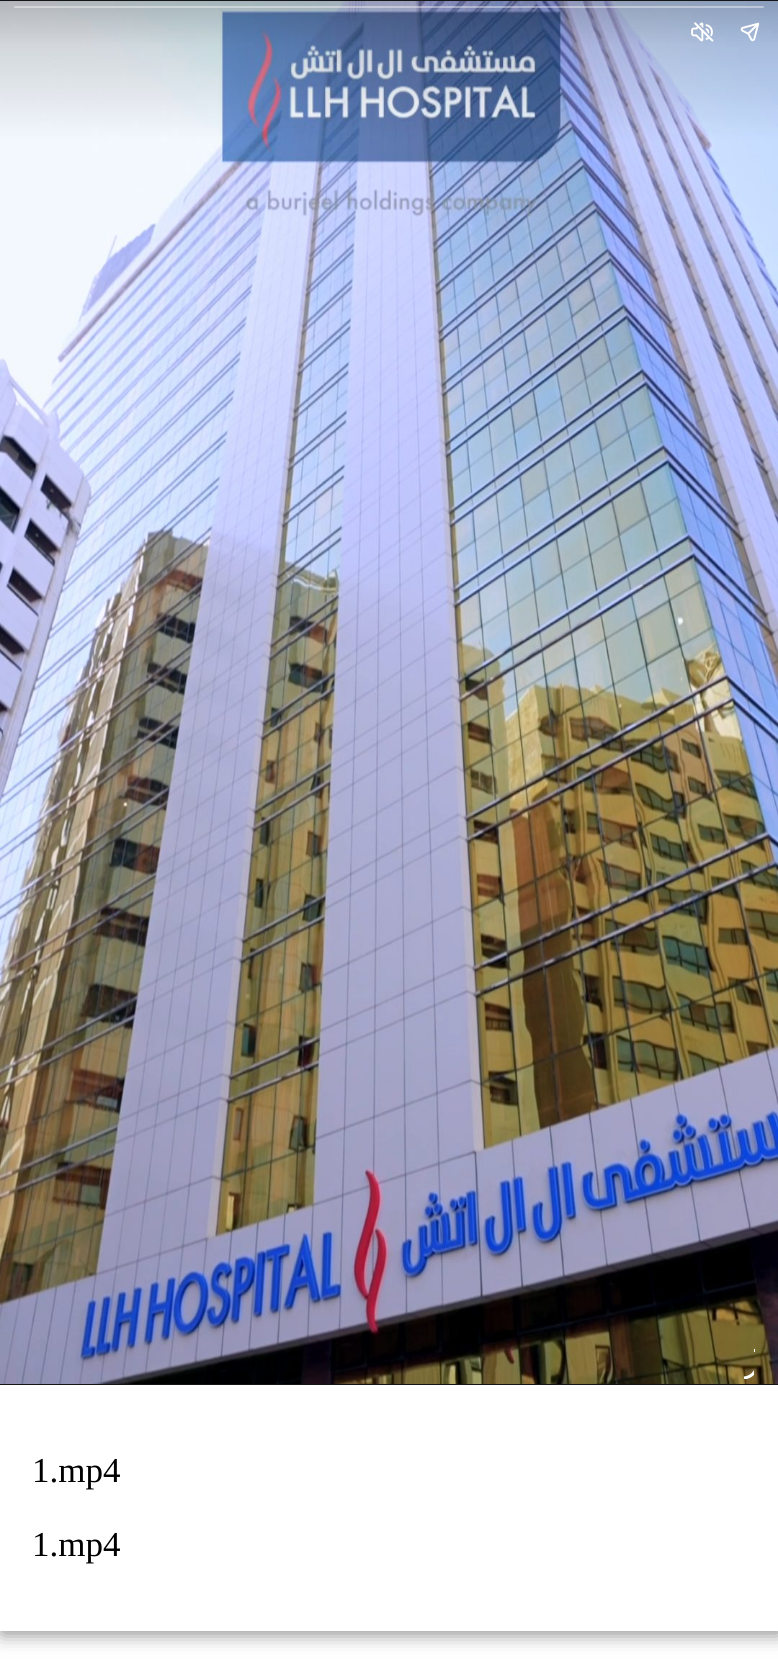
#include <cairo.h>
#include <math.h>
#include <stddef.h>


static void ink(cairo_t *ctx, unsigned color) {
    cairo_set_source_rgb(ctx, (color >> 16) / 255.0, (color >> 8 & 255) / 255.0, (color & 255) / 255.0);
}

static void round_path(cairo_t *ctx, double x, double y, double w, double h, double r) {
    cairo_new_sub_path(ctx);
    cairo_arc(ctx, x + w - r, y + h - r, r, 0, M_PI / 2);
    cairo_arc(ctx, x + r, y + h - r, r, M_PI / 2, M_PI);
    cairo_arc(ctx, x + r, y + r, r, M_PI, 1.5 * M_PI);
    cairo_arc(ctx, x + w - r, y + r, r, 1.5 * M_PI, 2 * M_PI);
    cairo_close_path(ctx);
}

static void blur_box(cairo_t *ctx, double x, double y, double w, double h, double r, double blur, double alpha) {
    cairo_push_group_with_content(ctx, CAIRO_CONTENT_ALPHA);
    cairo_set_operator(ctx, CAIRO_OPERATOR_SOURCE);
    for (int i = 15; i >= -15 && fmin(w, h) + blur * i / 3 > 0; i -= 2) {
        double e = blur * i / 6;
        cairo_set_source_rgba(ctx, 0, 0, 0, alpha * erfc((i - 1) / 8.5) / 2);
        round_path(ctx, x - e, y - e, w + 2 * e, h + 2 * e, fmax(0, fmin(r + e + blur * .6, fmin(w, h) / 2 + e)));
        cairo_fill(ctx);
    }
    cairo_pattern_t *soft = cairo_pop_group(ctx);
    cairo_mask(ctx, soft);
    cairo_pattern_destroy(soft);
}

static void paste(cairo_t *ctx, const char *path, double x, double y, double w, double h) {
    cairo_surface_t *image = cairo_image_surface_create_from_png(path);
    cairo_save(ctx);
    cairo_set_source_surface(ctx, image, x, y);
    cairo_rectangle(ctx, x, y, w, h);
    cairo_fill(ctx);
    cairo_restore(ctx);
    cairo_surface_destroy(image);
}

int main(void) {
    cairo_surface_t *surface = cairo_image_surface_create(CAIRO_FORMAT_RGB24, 778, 1671);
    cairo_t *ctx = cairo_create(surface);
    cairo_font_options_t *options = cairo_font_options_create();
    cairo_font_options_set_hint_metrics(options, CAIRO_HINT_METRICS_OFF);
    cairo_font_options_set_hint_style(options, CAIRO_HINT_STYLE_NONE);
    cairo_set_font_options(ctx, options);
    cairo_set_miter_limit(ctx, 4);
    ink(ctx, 0xFFFFFF);
    cairo_paint(ctx);
    ink(ctx, 0x000000);
    blur_box(ctx, 2, 2, 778, 1631, 0, 10, 0.5);
    ink(ctx, 0x131516);
    cairo_rectangle(ctx, 0, 0, 778, 1385);
    cairo_fill(ctx);
    paste(ctx, "media/1.png", 0, 1, 778, 1383);
    ink(ctx, 0xFFFFFF);
    cairo_rectangle(ctx, 754, 1349, 1, 3);
    cairo_fill(ctx);
    cairo_save(ctx);
    cairo_rectangle(ctx, 742, 1355, 12, 24);
    cairo_clip(ctx);
    cairo_new_path(ctx);
    cairo_move_to(ctx, 740.5, 1347.5);
    cairo_curve_to(ctx, 743.5, 1347, 746.5, 1347.5, 749.5, 1349);
    cairo_curve_to(ctx, 762.5, 1356, 759, 1376.5, 744, 1378);
    cairo_set_line_width(ctx, 3);
    cairo_stroke(ctx);
    cairo_restore(ctx);
    cairo_set_source_rgba(ctx, 1, 1, 1, 0.4);
    round_path(ctx, 14, 6, 750, 2, 1);
    cairo_fill(ctx);
    paste(ctx, "media/2.png", 691, 22, 23, 20);
    paste(ctx, "media/3.png", 740, 22, 20, 20);
    ink(ctx, 0xFFFFFF);
    cairo_rectangle(ctx, 0, 1385, 778, 246);
    cairo_fill(ctx);
    cairo_select_font_face(ctx, "Liberation Serif", CAIRO_FONT_SLANT_NORMAL, CAIRO_FONT_WEIGHT_NORMAL);
    cairo_set_font_size(ctx, 35);
    ink(ctx, 0x000000);
    cairo_move_to(ctx, 32, 1482);
    cairo_show_text(ctx, "1.mp4");
    cairo_move_to(ctx, 32, 1556);
    cairo_show_text(ctx, "1.mp4");
    cairo_surface_write_to_png(surface, "image.png");
    cairo_font_options_destroy(options);
    cairo_destroy(ctx);
    cairo_surface_destroy(surface);
    return 0;
}
